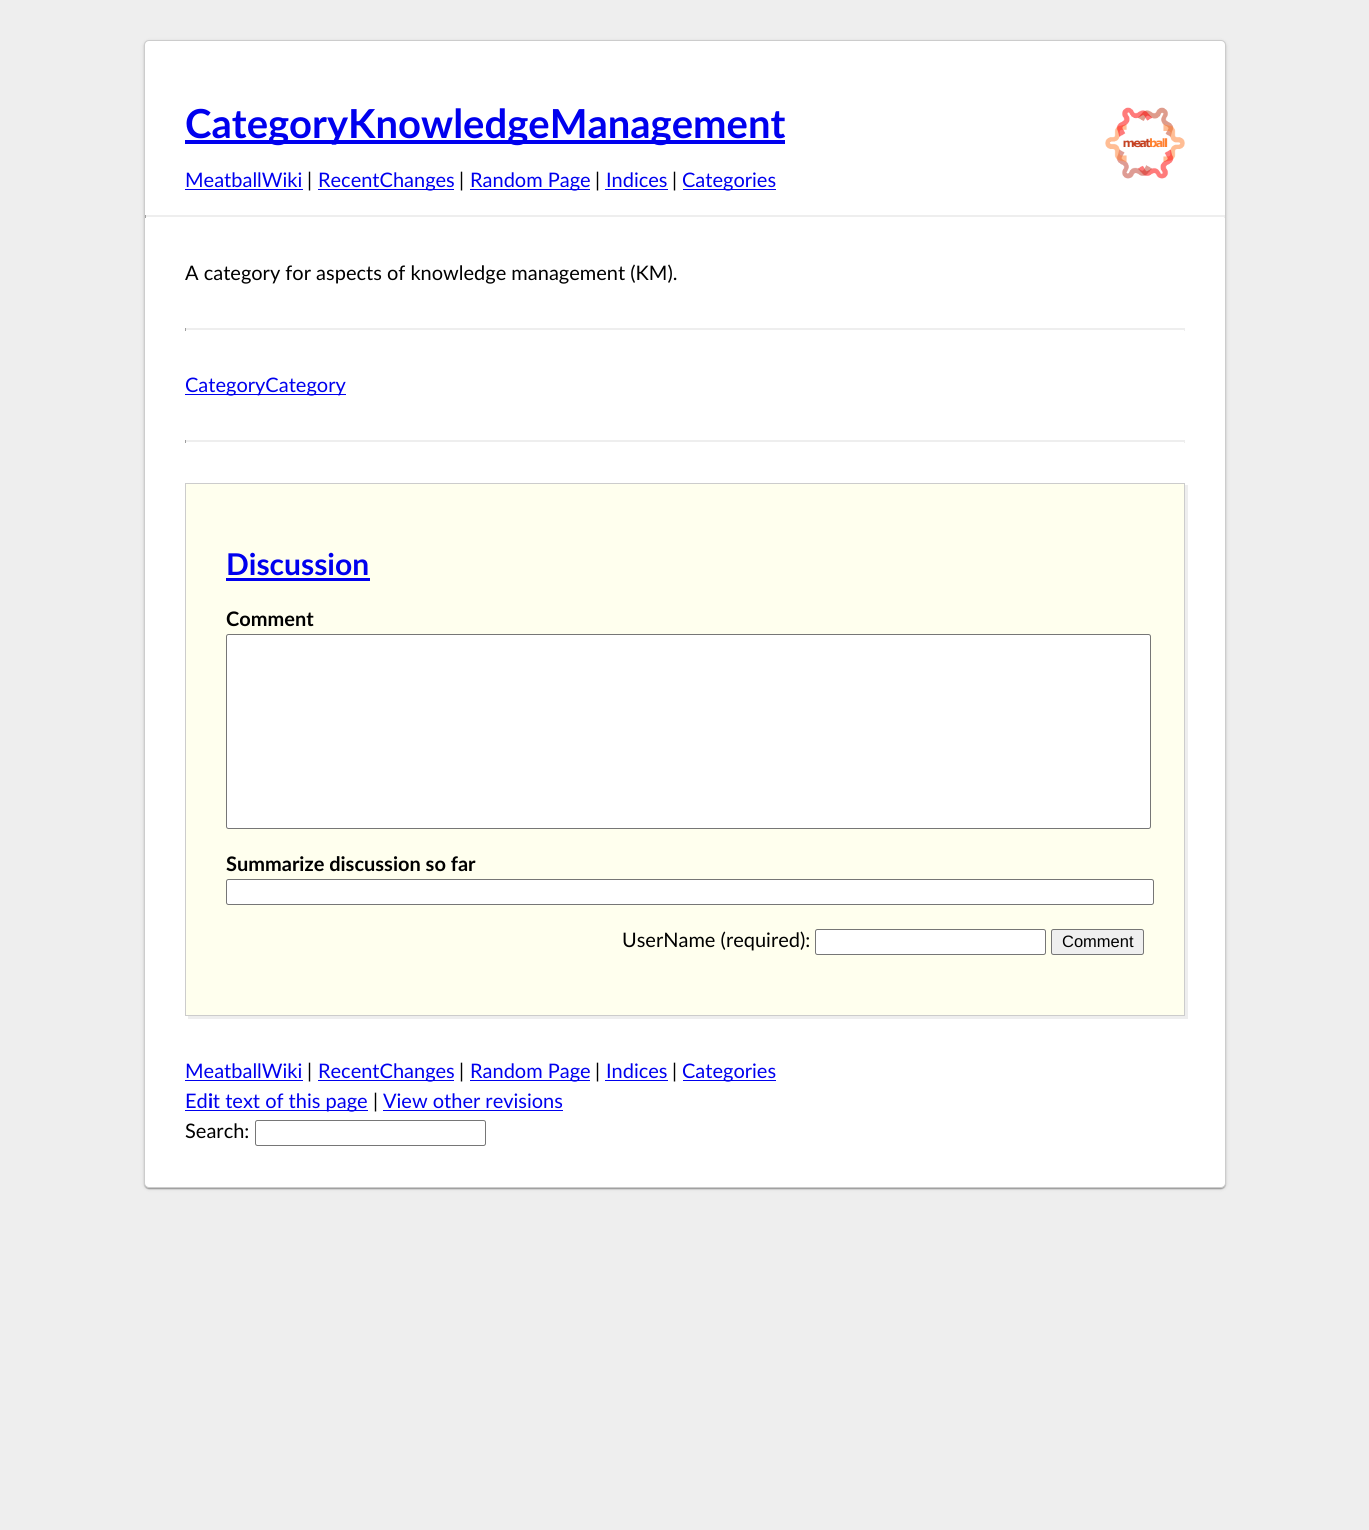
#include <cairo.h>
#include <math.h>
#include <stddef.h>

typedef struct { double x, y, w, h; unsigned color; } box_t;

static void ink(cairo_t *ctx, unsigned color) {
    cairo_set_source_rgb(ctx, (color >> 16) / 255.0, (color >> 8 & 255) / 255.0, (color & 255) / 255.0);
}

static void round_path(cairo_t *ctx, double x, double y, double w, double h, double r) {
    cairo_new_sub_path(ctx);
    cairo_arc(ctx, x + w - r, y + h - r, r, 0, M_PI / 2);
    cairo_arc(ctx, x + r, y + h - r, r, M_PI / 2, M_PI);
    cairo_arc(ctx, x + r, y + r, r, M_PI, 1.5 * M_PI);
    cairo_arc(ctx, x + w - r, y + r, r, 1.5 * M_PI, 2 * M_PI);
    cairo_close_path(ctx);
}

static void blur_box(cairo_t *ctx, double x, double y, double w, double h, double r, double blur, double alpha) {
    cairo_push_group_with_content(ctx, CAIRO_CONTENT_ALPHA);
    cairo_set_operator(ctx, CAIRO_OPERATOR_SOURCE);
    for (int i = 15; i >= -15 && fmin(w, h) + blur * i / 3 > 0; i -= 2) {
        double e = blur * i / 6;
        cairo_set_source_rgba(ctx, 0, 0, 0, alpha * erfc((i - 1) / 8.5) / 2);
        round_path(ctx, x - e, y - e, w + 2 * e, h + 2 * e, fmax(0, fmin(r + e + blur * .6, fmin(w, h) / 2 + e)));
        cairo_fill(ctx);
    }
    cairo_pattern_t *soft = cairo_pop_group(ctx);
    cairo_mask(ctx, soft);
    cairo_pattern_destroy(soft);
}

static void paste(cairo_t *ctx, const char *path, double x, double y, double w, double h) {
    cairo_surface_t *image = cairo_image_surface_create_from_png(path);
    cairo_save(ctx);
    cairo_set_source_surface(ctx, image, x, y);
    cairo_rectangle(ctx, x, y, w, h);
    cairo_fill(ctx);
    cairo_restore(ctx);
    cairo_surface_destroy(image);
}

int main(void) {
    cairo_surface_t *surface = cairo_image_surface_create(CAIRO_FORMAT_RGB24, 1369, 1530);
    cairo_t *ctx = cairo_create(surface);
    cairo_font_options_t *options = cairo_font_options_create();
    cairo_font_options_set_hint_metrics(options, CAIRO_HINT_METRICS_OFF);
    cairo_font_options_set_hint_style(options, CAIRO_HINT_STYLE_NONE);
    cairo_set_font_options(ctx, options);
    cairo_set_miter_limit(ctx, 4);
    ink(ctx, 0xEEEEEE);
    cairo_paint(ctx);
    ink(ctx, 0x000000);
    blur_box(ctx, 144, 41, 1082, 1148, 5, 2, 0.12);
    blur_box(ctx, 144, 41, 1082, 1148, 5, 0.5, 0.14);
    blur_box(ctx, 145, 44, 1080, 1145, 4, 0.5, 0.2);
    ink(ctx, 0xFFFFFF);
    round_path(ctx, 144.5, 40.5, 1081, 1147, 4.5);
    cairo_fill_preserve(ctx);
    ink(ctx, 0xCCCCCC);
    cairo_set_line_width(ctx, 1);
    cairo_stroke(ctx);
    ink(ctx, 0x0000EE);
    cairo_rectangle(ctx, 185, 140, 600, 4);
    cairo_fill(ctx);
    cairo_select_font_face(ctx, "Lato", CAIRO_FONT_SLANT_NORMAL, CAIRO_FONT_WEIGHT_BOLD);
    cairo_set_font_size(ctx, 40);
    cairo_move_to(ctx, 185, 138);
    cairo_show_text(ctx, "CategoryKnowledgeManagement");
    paste(ctx, "media/1.png", 1105, 107, 80, 72);
    cairo_select_font_face(ctx, "Lato", CAIRO_FONT_SLANT_NORMAL, CAIRO_FONT_WEIGHT_NORMAL);
    cairo_set_font_size(ctx, 20);
    cairo_move_to(ctx, 185, 187);
    cairo_show_text(ctx, "MeatballWiki");
    cairo_rectangle(ctx, 185, 189, 118, 1);
    cairo_fill(ctx);
    ink(ctx, 0x000000);
    cairo_move_to(ctx, 307, 187);
    cairo_show_text(ctx, "|");
    ink(ctx, 0x0000EE);
    cairo_rectangle(ctx, 318, 189, 136, 1);
    cairo_fill(ctx);
    cairo_move_to(ctx, 318, 187);
    cairo_show_text(ctx, "RecentChanges");
    ink(ctx, 0x000000);
    cairo_move_to(ctx, 459, 187);
    cairo_show_text(ctx, "|");
    ink(ctx, 0x0000EE);
    cairo_rectangle(ctx, 470, 189, 120, 1);
    cairo_fill(ctx);
    cairo_move_to(ctx, 470, 187);
    cairo_show_text(ctx, "Random Page");
    ink(ctx, 0x000000);
    cairo_move_to(ctx, 595, 187);
    cairo_show_text(ctx, "|");
    ink(ctx, 0x0000EE);
    cairo_move_to(ctx, 606, 187);
    cairo_show_text(ctx, "Indices");
    cairo_rectangle(ctx, 605, 189, 63, 1);
    cairo_fill(ctx);
    ink(ctx, 0x000000);
    cairo_move_to(ctx, 672, 187);
    cairo_show_text(ctx, "|");
    ink(ctx, 0x0000EE);
    cairo_rectangle(ctx, 683, 189, 93, 1);
    cairo_fill(ctx);
    cairo_move_to(ctx, 682, 187);
    cairo_show_text(ctx, "Categories");
    {
        static const box_t items[] = {
            {145, 215, 1080, 1, 0xEEEEEE},
            {1224, 215, 1, 3, 0xEEEEEE},
            {145, 216, 1080, 1, 0xEEEEEE},
            {145, 215, 1, 3, 0x9F9F9F},
        };
        for (size_t i = 0; i < sizeof items / sizeof *items; i++) {
            ink(ctx, items[i].color);
            cairo_rectangle(ctx, items[i].x, items[i].y, items[i].w, items[i].h);
            cairo_fill(ctx);
        }
    }
    ink(ctx, 0x000000);
    cairo_move_to(ctx, 185, 280);
    cairo_show_text(ctx, "A category for aspects of knowledge management (KM).");
    {
        static const box_t items[] = {
            {185, 328, 1000, 1, 0xEEEEEE},
            {1184, 328, 1, 3, 0xEEEEEE},
            {185, 329, 1000, 1, 0xEEEEEE},
            {185, 328, 1, 3, 0x9F9F9F},
            {185, 394, 161, 1, 0x0000EE},
        };
        for (size_t i = 0; i < sizeof items / sizeof *items; i++) {
            ink(ctx, items[i].color);
            cairo_rectangle(ctx, items[i].x, items[i].y, items[i].w, items[i].h);
            cairo_fill(ctx);
        }
    }
    cairo_move_to(ctx, 185, 392);
    cairo_show_text(ctx, "CategoryCategory");
    {
        static const box_t items[] = {
            {185, 440, 1000, 1, 0xEEEEEE},
            {1184, 440, 1, 3, 0xEEEEEE},
            {185, 441, 1000, 1, 0xEEEEEE},
            {185, 440, 1, 3, 0x9F9F9F},
        };
        for (size_t i = 0; i < sizeof items / sizeof *items; i++) {
            ink(ctx, items[i].color);
            cairo_rectangle(ctx, items[i].x, items[i].y, items[i].w, items[i].h);
            cairo_fill(ctx);
        }
    }
    ink(ctx, 0xEEEEEE);
    cairo_new_path(ctx);
    cairo_move_to(ctx, 188, 1016);
    cairo_line_to(ctx, 188, 1019);
    cairo_line_to(ctx, 1188, 1019);
    cairo_line_to(ctx, 1188, 485);
    cairo_line_to(ctx, 1185, 485);
    cairo_line_to(ctx, 1185, 1016);
    cairo_close_path(ctx);
    cairo_fill(ctx);
    ink(ctx, 0xFFFFEE);
    cairo_rectangle(ctx, 185.5, 483.5, 999, 532);
    cairo_fill_preserve(ctx);
    ink(ctx, 0xCCCCCC);
    cairo_stroke(ctx);
    cairo_select_font_face(ctx, "Lato", CAIRO_FONT_SLANT_NORMAL, CAIRO_FONT_WEIGHT_BOLD);
    cairo_set_font_size(ctx, 30);
    ink(ctx, 0x0000EE);
    cairo_move_to(ctx, 226, 575);
    cairo_show_text(ctx, "Discussion");
    cairo_rectangle(ctx, 226, 578, 144, 3);
    cairo_fill(ctx);
    cairo_set_font_size(ctx, 20);
    ink(ctx, 0x000000);
    cairo_move_to(ctx, 226, 626);
    cairo_show_text(ctx, "Comment");
    ink(ctx, 0xFFFFFF);
    round_path(ctx, 226.5, 634.5, 924, 194, 2);
    cairo_fill_preserve(ctx);
    ink(ctx, 0x767676);
    cairo_stroke(ctx);
    ink(ctx, 0x000000);
    cairo_move_to(ctx, 226, 871);
    cairo_show_text(ctx, "Summarize discussion so far");
    ink(ctx, 0xFFFFFF);
    round_path(ctx, 226.5, 879.5, 927, 25, 2);
    cairo_fill_preserve(ctx);
    ink(ctx, 0x767676);
    cairo_stroke(ctx);
    cairo_select_font_face(ctx, "Lato", CAIRO_FONT_SLANT_NORMAL, CAIRO_FONT_WEIGHT_NORMAL);
    ink(ctx, 0x000000);
    cairo_move_to(ctx, 622, 947);
    cairo_show_text(ctx, "UserName (required):");
    ink(ctx, 0xFFFFFF);
    round_path(ctx, 815.5, 929.5, 230, 25, 2);
    cairo_fill_preserve(ctx);
    ink(ctx, 0x767676);
    cairo_stroke(ctx);
    ink(ctx, 0xEFEFEF);
    round_path(ctx, 1051.5, 929.5, 92, 25, 2);
    cairo_fill_preserve(ctx);
    ink(ctx, 0x767676);
    cairo_stroke(ctx);
    cairo_select_font_face(ctx, "Liberation Sans", CAIRO_FONT_SLANT_NORMAL, CAIRO_FONT_WEIGHT_NORMAL);
    cairo_set_font_size(ctx, 16.5);
    ink(ctx, 0x000000);
    cairo_move_to(ctx, 1062, 947);
    cairo_show_text(ctx, "Comment");
    cairo_select_font_face(ctx, "Lato", CAIRO_FONT_SLANT_NORMAL, CAIRO_FONT_WEIGHT_NORMAL);
    cairo_set_font_size(ctx, 20);
    ink(ctx, 0x0000EE);
    cairo_move_to(ctx, 185, 1078);
    cairo_show_text(ctx, "MeatballWiki");
    cairo_rectangle(ctx, 185, 1080, 118, 1);
    cairo_fill(ctx);
    ink(ctx, 0x000000);
    cairo_move_to(ctx, 307, 1078);
    cairo_show_text(ctx, "|");
    ink(ctx, 0x0000EE);
    cairo_rectangle(ctx, 318, 1080, 136, 1);
    cairo_fill(ctx);
    cairo_move_to(ctx, 318, 1078);
    cairo_show_text(ctx, "RecentChanges");
    ink(ctx, 0x000000);
    cairo_move_to(ctx, 459, 1078);
    cairo_show_text(ctx, "|");
    ink(ctx, 0x0000EE);
    cairo_rectangle(ctx, 470, 1080, 120, 1);
    cairo_fill(ctx);
    cairo_move_to(ctx, 470, 1078);
    cairo_show_text(ctx, "Random Page");
    ink(ctx, 0x000000);
    cairo_move_to(ctx, 595, 1078);
    cairo_show_text(ctx, "|");
    ink(ctx, 0x0000EE);
    cairo_move_to(ctx, 606, 1078);
    cairo_show_text(ctx, "Indices");
    cairo_rectangle(ctx, 605, 1080, 63, 1);
    cairo_fill(ctx);
    ink(ctx, 0x000000);
    cairo_move_to(ctx, 672, 1078);
    cairo_show_text(ctx, "|");
    ink(ctx, 0x0000EE);
    cairo_rectangle(ctx, 683, 1080, 93, 1);
    cairo_fill(ctx);
    cairo_move_to(ctx, 682, 1078);
    cairo_show_text(ctx, "Categories");
    cairo_rectangle(ctx, 185, 1110, 183, 1);
    cairo_fill(ctx);
    cairo_move_to(ctx, 185, 1108);
    cairo_show_text(ctx, "Ed t text of this page");
    ink(ctx, 0x000000);
    cairo_move_to(ctx, 373, 1108);
    cairo_show_text(ctx, "|");
    cairo_select_font_face(ctx, "Lato", CAIRO_FONT_SLANT_NORMAL, CAIRO_FONT_WEIGHT_BOLD);
    ink(ctx, 0x0000EE);
    cairo_move_to(ctx, 208, 1108);
    cairo_show_text(ctx, "i");
    cairo_select_font_face(ctx, "Lato", CAIRO_FONT_SLANT_NORMAL, CAIRO_FONT_WEIGHT_NORMAL);
    cairo_move_to(ctx, 383, 1108);
    cairo_show_text(ctx, "View other revisions");
    cairo_rectangle(ctx, 383, 1110, 180, 1);
    cairo_fill(ctx);
    ink(ctx, 0x000000);
    cairo_move_to(ctx, 185, 1138);
    cairo_show_text(ctx, "Search:");
    round_path(ctx, 255.5, 1120.5, 230, 25, 2);
    ink(ctx, 0x767676);
    cairo_stroke(ctx);
    cairo_surface_write_to_png(surface, "image.png");
    cairo_font_options_destroy(options);
    cairo_destroy(ctx);
    cairo_surface_destroy(surface);
    return 0;
}
